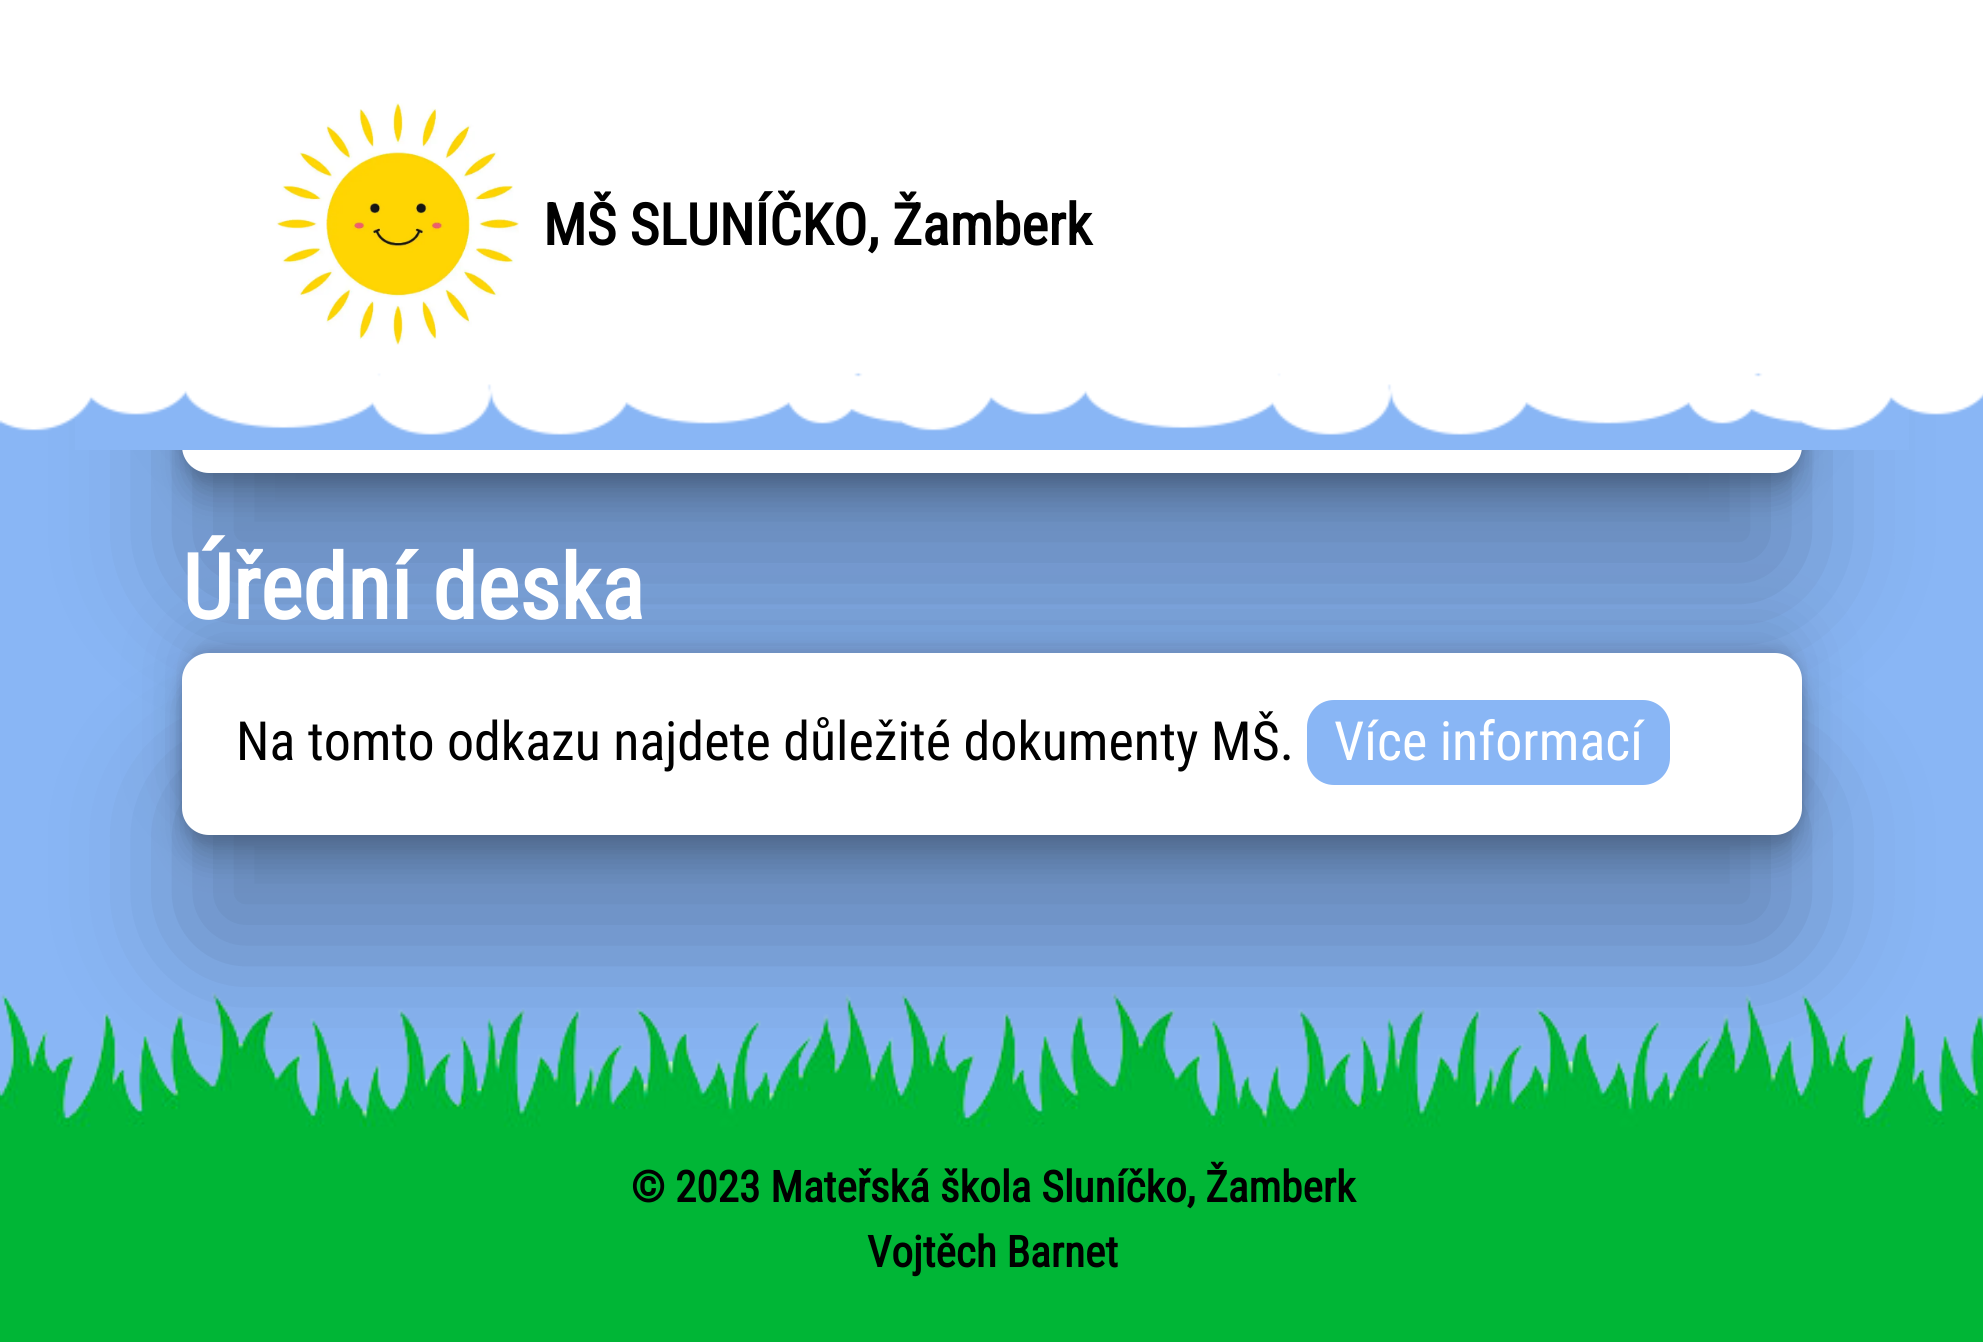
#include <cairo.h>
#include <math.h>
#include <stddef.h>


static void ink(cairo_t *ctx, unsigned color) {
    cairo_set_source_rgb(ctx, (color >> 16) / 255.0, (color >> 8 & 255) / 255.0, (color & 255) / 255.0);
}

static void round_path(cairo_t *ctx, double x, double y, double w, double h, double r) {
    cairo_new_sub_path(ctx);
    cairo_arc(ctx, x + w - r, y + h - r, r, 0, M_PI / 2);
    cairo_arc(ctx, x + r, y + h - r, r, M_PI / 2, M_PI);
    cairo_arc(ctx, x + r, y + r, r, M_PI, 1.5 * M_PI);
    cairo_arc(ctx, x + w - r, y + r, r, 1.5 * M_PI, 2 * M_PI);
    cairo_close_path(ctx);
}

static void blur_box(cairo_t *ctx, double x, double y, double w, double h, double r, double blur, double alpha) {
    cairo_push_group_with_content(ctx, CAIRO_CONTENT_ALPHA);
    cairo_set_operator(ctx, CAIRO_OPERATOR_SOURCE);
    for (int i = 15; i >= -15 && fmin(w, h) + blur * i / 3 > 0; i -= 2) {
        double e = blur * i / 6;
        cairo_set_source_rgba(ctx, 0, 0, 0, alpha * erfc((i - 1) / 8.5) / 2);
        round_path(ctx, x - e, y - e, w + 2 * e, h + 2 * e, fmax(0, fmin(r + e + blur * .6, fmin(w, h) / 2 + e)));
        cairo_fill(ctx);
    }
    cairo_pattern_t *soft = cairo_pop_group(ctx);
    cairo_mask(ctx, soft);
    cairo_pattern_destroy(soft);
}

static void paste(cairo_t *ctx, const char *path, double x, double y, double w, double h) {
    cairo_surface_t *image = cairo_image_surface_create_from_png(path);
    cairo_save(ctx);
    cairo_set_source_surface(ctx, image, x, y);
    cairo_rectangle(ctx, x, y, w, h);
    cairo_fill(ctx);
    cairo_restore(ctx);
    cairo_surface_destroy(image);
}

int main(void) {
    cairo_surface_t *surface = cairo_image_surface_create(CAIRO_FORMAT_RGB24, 1983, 1342);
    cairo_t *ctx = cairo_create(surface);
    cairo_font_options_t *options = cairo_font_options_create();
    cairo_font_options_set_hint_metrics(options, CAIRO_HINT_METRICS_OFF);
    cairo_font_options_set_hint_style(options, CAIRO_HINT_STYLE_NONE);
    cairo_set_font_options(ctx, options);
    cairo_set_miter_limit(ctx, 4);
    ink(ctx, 0x89B6F5);
    cairo_paint(ctx);
    ink(ctx, 0x000000);
    blur_box(ctx, 182, 56, 1620, 410, 27, 5.5, 0.09);
    blur_box(ctx, 182, 90, 1620, 410, 27, 14.5, 0.17);
    blur_box(ctx, 182, 72, 1620, 410, 27, 7, 0.12);
    blur_box(ctx, 182, 36, 1620, 410, 27, 34, 0.12);
    blur_box(ctx, 182, 185, 1620, 409, 27, 62, 0.25);
    ink(ctx, 0xFFFFFF);
    round_path(ctx, 182, 63, 1620, 410, 27);
    cairo_fill(ctx);
    ink(ctx, 0x89B6F5);
    cairo_rectangle(ctx, 75, 372, 1834, 78);
    cairo_fill(ctx);
    paste(ctx, "media/1.png", 0, 0, 1983, 435);
    paste(ctx, "media/2.png", 276, 103, 243, 242);
    cairo_select_font_face(ctx, "Roboto Condensed", CAIRO_FONT_SLANT_NORMAL, CAIRO_FONT_WEIGHT_BOLD);
    cairo_set_font_size(ctx, 57.5);
    ink(ctx, 0x000000);
    cairo_move_to(ctx, 543, 245);
    cairo_show_text(ctx, "MŠ SLUNÍČKO, Žamberk");
    ink(ctx, 0x000000);
    blur_box(ctx, 182, 626, 1620, 182, 27, 34, 0.12);
    paste(ctx, "media/3.png", 0, 992, 1983, 350);
    blur_box(ctx, 182, 774, 1620, 182, 27, 62, 0.25);
    cairo_set_font_size(ctx, 90);
    ink(ctx, 0xFFFFFF);
    cairo_move_to(ctx, 182, 619);
    cairo_show_text(ctx, "Úřední deska");
    ink(ctx, 0x000000);
    blur_box(ctx, 182, 646, 1620, 182, 27, 5.5, 0.09);
    blur_box(ctx, 182, 680, 1620, 182, 27, 14.5, 0.17);
    blur_box(ctx, 182, 662, 1620, 182, 27, 7, 0.12);
    ink(ctx, 0xFFFFFF);
    round_path(ctx, 182, 653, 1620, 182, 27);
    cairo_fill(ctx);
    cairo_select_font_face(ctx, "Roboto Condensed", CAIRO_FONT_SLANT_NORMAL, CAIRO_FONT_WEIGHT_NORMAL);
    cairo_set_font_size(ctx, 54);
    ink(ctx, 0x000000);
    cairo_move_to(ctx, 236, 760);
    cairo_show_text(ctx, "Na tomto odkazu najdete důležité dokumenty MŠ.");
    ink(ctx, 0x89B6F5);
    round_path(ctx, 1307, 700, 363, 85, 27);
    cairo_fill(ctx);
    ink(ctx, 0xFFFFFF);
    cairo_move_to(ctx, 1334, 760);
    cairo_show_text(ctx, "Více informací");
    cairo_select_font_face(ctx, "Roboto Condensed", CAIRO_FONT_SLANT_NORMAL, CAIRO_FONT_WEIGHT_BOLD);
    cairo_set_font_size(ctx, 43.25);
    ink(ctx, 0x000000);
    cairo_move_to(ctx, 631, 1202);
    cairo_show_text(ctx, "© 2023 Mateřská škola Sluníčko, Žamberk");
    cairo_move_to(ctx, 867, 1267);
    cairo_show_text(ctx, "Vojtěch Barnet");
    cairo_surface_write_to_png(surface, "image.png");
    cairo_font_options_destroy(options);
    cairo_destroy(ctx);
    cairo_surface_destroy(surface);
    return 0;
}
